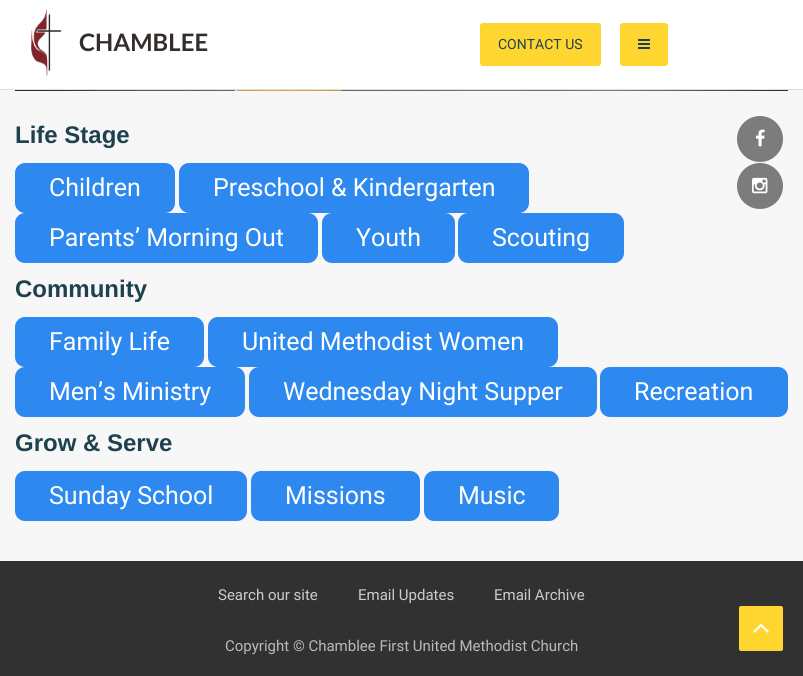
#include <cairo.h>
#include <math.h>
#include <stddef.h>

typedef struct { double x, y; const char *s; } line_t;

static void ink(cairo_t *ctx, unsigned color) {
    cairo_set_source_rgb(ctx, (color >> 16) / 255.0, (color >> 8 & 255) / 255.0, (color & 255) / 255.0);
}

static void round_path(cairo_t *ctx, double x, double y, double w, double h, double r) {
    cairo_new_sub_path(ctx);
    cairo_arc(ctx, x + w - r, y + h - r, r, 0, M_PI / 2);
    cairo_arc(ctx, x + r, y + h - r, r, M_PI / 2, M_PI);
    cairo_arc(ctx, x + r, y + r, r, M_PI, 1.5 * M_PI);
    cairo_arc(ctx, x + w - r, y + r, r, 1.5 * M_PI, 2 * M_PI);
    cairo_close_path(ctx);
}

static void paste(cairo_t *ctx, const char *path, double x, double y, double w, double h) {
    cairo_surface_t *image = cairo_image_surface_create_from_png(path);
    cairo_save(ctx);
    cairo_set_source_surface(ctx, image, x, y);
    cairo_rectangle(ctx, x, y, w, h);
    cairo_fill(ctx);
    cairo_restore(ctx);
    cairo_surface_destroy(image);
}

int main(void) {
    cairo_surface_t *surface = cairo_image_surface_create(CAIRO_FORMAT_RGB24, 803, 676);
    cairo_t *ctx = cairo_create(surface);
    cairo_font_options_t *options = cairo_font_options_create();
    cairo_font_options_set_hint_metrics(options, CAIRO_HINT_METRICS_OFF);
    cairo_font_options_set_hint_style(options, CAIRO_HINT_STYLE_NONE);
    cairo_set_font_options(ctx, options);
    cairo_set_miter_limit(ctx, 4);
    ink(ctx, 0xF7F7F7);
    cairo_paint(ctx);
    ink(ctx, 0xFFFFFF);
    cairo_rectangle(ctx, 0, 0, 803, 89);
    cairo_fill(ctx);
    ink(ctx, 0xDEDEDE);
    cairo_rectangle(ctx, 0, 89, 803, 1);
    cairo_fill(ctx);
    paste(ctx, "media/1.png", 31, 9, 31, 67);
    cairo_select_font_face(ctx, "Lato", CAIRO_FONT_SLANT_NORMAL, CAIRO_FONT_WEIGHT_BOLD);
    cairo_set_font_size(ctx, 24);
    ink(ctx, 0x332E2B);
    cairo_move_to(ctx, 79, 51);
    cairo_show_text(ctx, "CHAMBLEE");
    ink(ctx, 0xFFD52F);
    round_path(ctx, 480, 23, 121, 43, 3);
    cairo_fill(ctx);
    cairo_select_font_face(ctx, "Roboto", CAIRO_FONT_SLANT_NORMAL, CAIRO_FONT_WEIGHT_NORMAL);
    cairo_set_font_size(ctx, 14);
    ink(ctx, 0x1E414E);
    cairo_move_to(ctx, 498, 49);
    cairo_show_text(ctx, "CONTACT US");
    ink(ctx, 0xFFD52F);
    round_path(ctx, 620, 23, 48, 43, 3);
    cairo_fill(ctx);
    paste(ctx, "media/2.png", 638, 39, 12, 10);
    paste(ctx, "media/3.png", 15, 90, 773, 1);
    cairo_select_font_face(ctx, "Liberation Sans", CAIRO_FONT_SLANT_NORMAL, CAIRO_FONT_WEIGHT_BOLD);
    cairo_set_font_size(ctx, 24);
    ink(ctx, 0x1E414E);
    cairo_move_to(ctx, 15, 143);
    cairo_show_text(ctx, "Life Stage");
    ink(ctx, 0x2D89EF);
    round_path(ctx, 15, 163, 160, 50, 10);
    cairo_fill(ctx);
    cairo_select_font_face(ctx, "Roboto", CAIRO_FONT_SLANT_NORMAL, CAIRO_FONT_WEIGHT_NORMAL);
    cairo_set_font_size(ctx, 25);
    ink(ctx, 0xFFFFFF);
    cairo_move_to(ctx, 49, 196);
    cairo_show_text(ctx, "Children");
    ink(ctx, 0x2D89EF);
    round_path(ctx, 179, 163, 350, 50, 10);
    cairo_fill(ctx);
    ink(ctx, 0xFFFFFF);
    cairo_move_to(ctx, 213, 196);
    cairo_show_text(ctx, "Preschool & Kindergarten");
    ink(ctx, 0x2D89EF);
    round_path(ctx, 15, 213, 303, 50, 10);
    cairo_fill(ctx);
    ink(ctx, 0xFFFFFF);
    cairo_move_to(ctx, 49, 246);
    cairo_show_text(ctx, "Parents’ Morning Out");
    ink(ctx, 0x2D89EF);
    round_path(ctx, 322, 213, 133, 50, 10);
    cairo_fill(ctx);
    ink(ctx, 0xFFFFFF);
    cairo_move_to(ctx, 356, 246);
    cairo_show_text(ctx, "Youth");
    ink(ctx, 0x2D89EF);
    round_path(ctx, 458, 213, 166, 50, 10);
    cairo_fill(ctx);
    ink(ctx, 0xFFFFFF);
    cairo_move_to(ctx, 492, 246);
    cairo_show_text(ctx, "Scouting");
    cairo_select_font_face(ctx, "Liberation Sans", CAIRO_FONT_SLANT_NORMAL, CAIRO_FONT_WEIGHT_BOLD);
    cairo_set_font_size(ctx, 24);
    ink(ctx, 0x1E414E);
    cairo_move_to(ctx, 15, 297);
    cairo_show_text(ctx, "Community");
    ink(ctx, 0x2D89EF);
    round_path(ctx, 15, 317, 189, 50, 10);
    cairo_fill(ctx);
    cairo_select_font_face(ctx, "Roboto", CAIRO_FONT_SLANT_NORMAL, CAIRO_FONT_WEIGHT_NORMAL);
    cairo_set_font_size(ctx, 25);
    ink(ctx, 0xFFFFFF);
    cairo_move_to(ctx, 49, 350);
    cairo_show_text(ctx, "Family Life");
    ink(ctx, 0x2D89EF);
    round_path(ctx, 208, 317, 350, 50, 10);
    cairo_fill(ctx);
    ink(ctx, 0xFFFFFF);
    cairo_move_to(ctx, 242, 350);
    cairo_show_text(ctx, "United Methodist Women");
    ink(ctx, 0x2D89EF);
    round_path(ctx, 15, 367, 230, 50, 10);
    cairo_fill(ctx);
    ink(ctx, 0xFFFFFF);
    cairo_move_to(ctx, 49, 400);
    cairo_show_text(ctx, "Men’s Ministry");
    ink(ctx, 0x2D89EF);
    round_path(ctx, 249, 367, 348, 50, 10);
    cairo_fill(ctx);
    ink(ctx, 0xFFFFFF);
    cairo_move_to(ctx, 283, 400);
    cairo_show_text(ctx, "Wednesday Night Supper");
    ink(ctx, 0x2D89EF);
    round_path(ctx, 600, 367, 188, 50, 10);
    cairo_fill(ctx);
    ink(ctx, 0xFFFFFF);
    cairo_move_to(ctx, 634, 400);
    cairo_show_text(ctx, "Recreation");
    cairo_select_font_face(ctx, "Liberation Sans", CAIRO_FONT_SLANT_NORMAL, CAIRO_FONT_WEIGHT_BOLD);
    cairo_set_font_size(ctx, 24);
    ink(ctx, 0x1E414E);
    cairo_move_to(ctx, 15, 451);
    cairo_show_text(ctx, "Grow & Serve");
    ink(ctx, 0x2D89EF);
    round_path(ctx, 15, 471, 232, 50, 10);
    cairo_fill(ctx);
    cairo_select_font_face(ctx, "Roboto", CAIRO_FONT_SLANT_NORMAL, CAIRO_FONT_WEIGHT_NORMAL);
    cairo_set_font_size(ctx, 25);
    ink(ctx, 0xFFFFFF);
    cairo_move_to(ctx, 49, 504);
    cairo_show_text(ctx, "Sunday School");
    ink(ctx, 0x2D89EF);
    round_path(ctx, 251, 471, 169, 50, 10);
    cairo_fill(ctx);
    ink(ctx, 0xFFFFFF);
    cairo_move_to(ctx, 285, 504);
    cairo_show_text(ctx, "Missions");
    ink(ctx, 0x2D89EF);
    round_path(ctx, 424, 471, 135, 50, 10);
    cairo_fill(ctx);
    ink(ctx, 0xFFFFFF);
    cairo_move_to(ctx, 458, 504);
    cairo_show_text(ctx, "Music");
    ink(ctx, 0x7C7C7C);
    cairo_new_path(ctx);
    cairo_arc(ctx, 760, 139, 23, 0, 2 * M_PI);
    cairo_fill(ctx);
    paste(ctx, "media/4.png", 755, 129, 10, 18);
    cairo_arc(ctx, 760, 186, 23, 0, 2 * M_PI);
    cairo_fill(ctx);
    paste(ctx, "media/5.png", 752, 177, 16, 17);
    ink(ctx, 0x313131);
    cairo_rectangle(ctx, 0, 561, 803, 115);
    cairo_fill(ctx);
    cairo_set_font_size(ctx, 15);
    ink(ctx, 0xCCCCCC);
    {
        static const line_t items[] = {
            {218, 600, "Search our site"},
            {358, 600, "Email Updates"},
            {494, 600, "Email Archive"},
        };
        for (size_t i = 0; i < sizeof items / sizeof *items; i++) {
            cairo_move_to(ctx, items[i].x, items[i].y);
            cairo_show_text(ctx, items[i].s);
        }
    }
    ink(ctx, 0xBABABA);
    cairo_move_to(ctx, 225, 651);
    cairo_show_text(ctx, "Copyright © Chamblee First United Methodist Church");
    ink(ctx, 0xFFD52F);
    round_path(ctx, 739, 606, 44, 45, 2);
    cairo_fill(ctx);
    paste(ctx, "media/6.png", 753, 623, 16, 10);
    cairo_surface_write_to_png(surface, "image.png");
    cairo_font_options_destroy(options);
    cairo_destroy(ctx);
    cairo_surface_destroy(surface);
    return 0;
}
